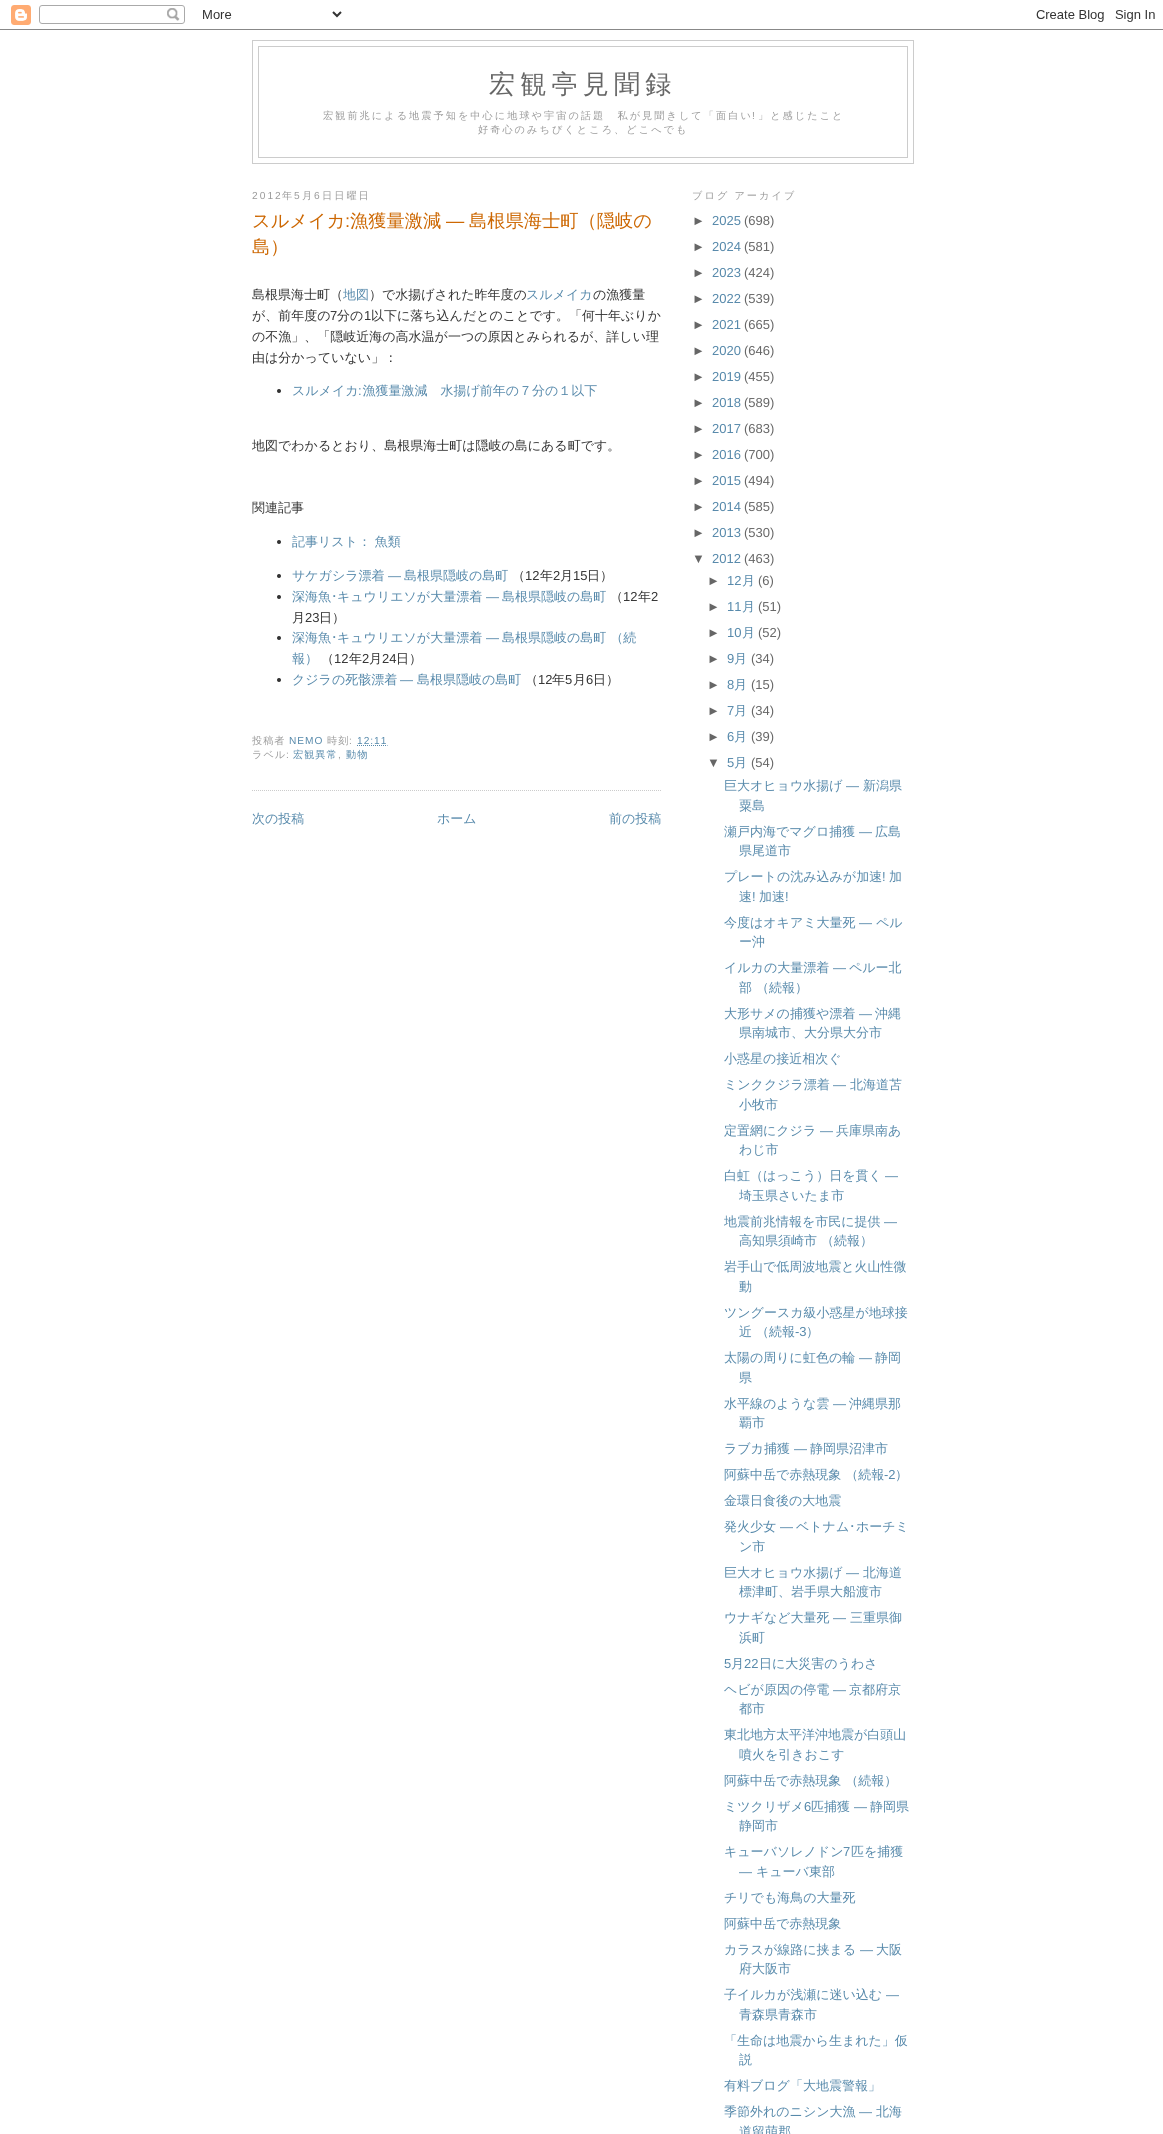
#include <cairo.h>
#include <math.h>
#include <stddef.h>

typedef struct { double x, y; const char *s; } line_t;

static void ink(cairo_t *ctx, unsigned color) {
    cairo_set_source_rgb(ctx, (color >> 16) / 255.0, (color >> 8 & 255) / 255.0, (color & 255) / 255.0);
}

static void write_spaced(cairo_t *ctx, double x, double y, const char *s, double letter, double word) {
    cairo_move_to(ctx, x, y);
    while (*s) {
        char ch[5] = {0};
        int n = 0;
        do ch[n++] = *s++; while ((*s & 0xC0) == 0x80);
        cairo_show_text(ctx, ch);
        cairo_rel_move_to(ctx, letter + word * (*ch == ' '), 0);
    }
}

static void paste(cairo_t *ctx, const char *path, double x, double y, double w, double h) {
    cairo_surface_t *image = cairo_image_surface_create_from_png(path);
    cairo_save(ctx);
    cairo_set_source_surface(ctx, image, x, y);
    cairo_rectangle(ctx, x, y, w, h);
    cairo_fill(ctx);
    cairo_restore(ctx);
    cairo_surface_destroy(image);
}

int main(void) {
    cairo_surface_t *surface = cairo_image_surface_create(CAIRO_FORMAT_RGB24, 1163, 2134);
    cairo_t *ctx = cairo_create(surface);
    cairo_font_options_t *options = cairo_font_options_create();
    cairo_font_options_set_hint_metrics(options, CAIRO_HINT_METRICS_OFF);
    cairo_font_options_set_hint_style(options, CAIRO_HINT_STYLE_NONE);
    cairo_set_font_options(ctx, options);
    cairo_set_miter_limit(ctx, 4);
    ink(ctx, 0xFFFFFF);
    cairo_paint(ctx);
    paste(ctx, "media/1.png", 0, 5, 1163, 25);
    cairo_rectangle(ctx, 252.5, 40.5, 661, 123);
    ink(ctx, 0xCCCCCC);
    cairo_set_line_width(ctx, 1);
    cairo_stroke(ctx);
    cairo_rectangle(ctx, 258.5, 46.5, 649, 111);
    cairo_stroke(ctx);
    cairo_select_font_face(ctx, "WenQuanYi Zen Hei Medium", CAIRO_FONT_SLANT_NORMAL, CAIRO_FONT_WEIGHT_NORMAL);
    cairo_set_font_size(ctx, 26);
    ink(ctx, 0x666666);
    write_spaced(ctx, 489, 93, "宏観亭見聞録", 5.25, 0);
    cairo_set_font_size(ctx, 10.15);
    ink(ctx, 0x999999);
    write_spaced(ctx, 323, 119, "宏観前兆による地震予知を中心に地球や宇宙の話題　私が見聞きして「面白い 」と感じたこと", 2.05, 0);
    cairo_select_font_face(ctx, "Liberation Sans", CAIRO_FONT_SLANT_NORMAL, CAIRO_FONT_WEIGHT_NORMAL);
    write_spaced(ctx, 752, 119, "!", 2.05, 0);
    cairo_select_font_face(ctx, "WenQuanYi Zen Hei Medium", CAIRO_FONT_SLANT_NORMAL, CAIRO_FONT_WEIGHT_NORMAL);
    write_spaced(ctx, 478, 133, "好奇心のみちびくところ、どこへでも", 2.05, 0);
    cairo_select_font_face(ctx, "Liberation Sans", CAIRO_FONT_SLANT_NORMAL, CAIRO_FONT_WEIGHT_NORMAL);
    write_spaced(ctx, 252, 199, "2012", 2.05, 0);
    cairo_select_font_face(ctx, "WenQuanYi Zen Hei Medium", CAIRO_FONT_SLANT_NORMAL, CAIRO_FONT_WEIGHT_NORMAL);
    write_spaced(ctx, 282, 199, "年", 2.05, 0);
    cairo_select_font_face(ctx, "Liberation Sans", CAIRO_FONT_SLANT_NORMAL, CAIRO_FONT_WEIGHT_NORMAL);
    write_spaced(ctx, 294, 199, "5", 2.05, 0);
    cairo_select_font_face(ctx, "WenQuanYi Zen Hei Medium", CAIRO_FONT_SLANT_NORMAL, CAIRO_FONT_WEIGHT_NORMAL);
    write_spaced(ctx, 302, 199, "月", 2.05, 0);
    cairo_select_font_face(ctx, "Liberation Sans", CAIRO_FONT_SLANT_NORMAL, CAIRO_FONT_WEIGHT_NORMAL);
    write_spaced(ctx, 314, 199, "6", 2.05, 0);
    cairo_select_font_face(ctx, "WenQuanYi Zen Hei Medium", CAIRO_FONT_SLANT_NORMAL, CAIRO_FONT_WEIGHT_NORMAL);
    write_spaced(ctx, 322, 199, "日日曜日", 2.05, 0);
    cairo_new_path(ctx);
    cairo_move_to(ctx, 252, 790.5);
    cairo_line_to(ctx, 662, 790.5);
    ink(ctx, 0xCCCCCC);
    cairo_set_dash(ctx, (double[]){1, 1}, 2, 0);
    cairo_stroke(ctx);
    cairo_set_font_size(ctx, 18.25);
    ink(ctx, 0xCC6600);
    cairo_move_to(ctx, 252, 227);
    cairo_show_text(ctx, "スルメイカ");
    cairo_select_font_face(ctx, "Liberation Sans", CAIRO_FONT_SLANT_NORMAL, CAIRO_FONT_WEIGHT_NORMAL);
    cairo_move_to(ctx, 345, 227);
    cairo_show_text(ctx, ":");
    cairo_select_font_face(ctx, "WenQuanYi Zen Hei Medium", CAIRO_FONT_SLANT_NORMAL, CAIRO_FONT_WEIGHT_NORMAL);
    cairo_move_to(ctx, 350, 227);
    cairo_show_text(ctx, "漁獲量激減");
    cairo_select_font_face(ctx, "Liberation Sans", CAIRO_FONT_SLANT_NORMAL, CAIRO_FONT_WEIGHT_NORMAL);
    cairo_move_to(ctx, 446, 227);
    cairo_show_text(ctx, "―");
    cairo_select_font_face(ctx, "WenQuanYi Zen Hei Medium", CAIRO_FONT_SLANT_NORMAL, CAIRO_FONT_WEIGHT_NORMAL);
    cairo_move_to(ctx, 469, 227);
    cairo_show_text(ctx, "島根県海士町（隠岐の");
    cairo_move_to(ctx, 252, 253);
    cairo_show_text(ctx, "島）");
    cairo_set_font_size(ctx, 13);
    ink(ctx, 0x333333);
    cairo_move_to(ctx, 252, 299);
    cairo_show_text(ctx, "島根県海士町（");
    ink(ctx, 0x5588AA);
    cairo_move_to(ctx, 343, 299);
    cairo_show_text(ctx, "地図");
    ink(ctx, 0x333333);
    cairo_move_to(ctx, 369, 299);
    cairo_show_text(ctx, "）で水揚げされた昨年度の");
    ink(ctx, 0x5588AA);
    cairo_move_to(ctx, 526, 299);
    cairo_show_text(ctx, "スルメイカ");
    ink(ctx, 0x333333);
    cairo_move_to(ctx, 593, 299);
    cairo_show_text(ctx, "の漁獲量");
    cairo_move_to(ctx, 252, 320);
    cairo_show_text(ctx, "が、前年度の");
    cairo_select_font_face(ctx, "Liberation Sans", CAIRO_FONT_SLANT_NORMAL, CAIRO_FONT_WEIGHT_NORMAL);
    cairo_move_to(ctx, 330, 320);
    cairo_show_text(ctx, "7");
    cairo_select_font_face(ctx, "WenQuanYi Zen Hei Medium", CAIRO_FONT_SLANT_NORMAL, CAIRO_FONT_WEIGHT_NORMAL);
    cairo_move_to(ctx, 337, 320);
    cairo_show_text(ctx, "分の");
    cairo_select_font_face(ctx, "Liberation Sans", CAIRO_FONT_SLANT_NORMAL, CAIRO_FONT_WEIGHT_NORMAL);
    cairo_move_to(ctx, 364, 320);
    cairo_show_text(ctx, "1");
    cairo_select_font_face(ctx, "WenQuanYi Zen Hei Medium", CAIRO_FONT_SLANT_NORMAL, CAIRO_FONT_WEIGHT_NORMAL);
    {
        static const line_t items[] = {
            {371, 320, "以下に落ち込んだとのことです。「何十年ぶりか"},
            {252, 341, "の不漁」、「隠岐近海の高水温が一つの原因とみられるが、詳しい理"},
            {252, 362, "由は分かっていない」："},
        };
        for (size_t i = 0; i < sizeof items / sizeof *items; i++) {
            cairo_move_to(ctx, items[i].x, items[i].y);
            cairo_show_text(ctx, items[i].s);
        }
    }
    ink(ctx, 0x5588AA);
    cairo_move_to(ctx, 292, 395);
    cairo_show_text(ctx, "スルメイカ 漁獲量激減　水揚げ前年の７分の１以下");
    ink(ctx, 0x333333);
    cairo_new_path(ctx);
    cairo_arc(ctx, 279, 391, 2, 0, 2 * M_PI);
    cairo_fill(ctx);
    cairo_select_font_face(ctx, "Liberation Sans", CAIRO_FONT_SLANT_NORMAL, CAIRO_FONT_WEIGHT_NORMAL);
    ink(ctx, 0x5588AA);
    cairo_move_to(ctx, 358, 395);
    cairo_show_text(ctx, ":");
    cairo_save(ctx);
    cairo_rectangle(ctx, 252, 174, 410, 706);
    cairo_clip(ctx);
    cairo_select_font_face(ctx, "WenQuanYi Zen Hei Medium", CAIRO_FONT_SLANT_NORMAL, CAIRO_FONT_WEIGHT_NORMAL);
    ink(ctx, 0x333333);
    cairo_move_to(ctx, 252, 450);
    cairo_show_text(ctx, "地図でわかるとおり、島根県海士町は隠岐の島にある町です。");
    cairo_restore(ctx);
    cairo_select_font_face(ctx, "WenQuanYi Zen Hei Medium", CAIRO_FONT_SLANT_NORMAL, CAIRO_FONT_WEIGHT_NORMAL);
    ink(ctx, 0x333333);
    cairo_move_to(ctx, 252, 512);
    cairo_show_text(ctx, "関連記事");
    cairo_new_path(ctx);
    cairo_arc(ctx, 279, 542, 2, 0, 2 * M_PI);
    cairo_fill(ctx);
    ink(ctx, 0x5588AA);
    cairo_move_to(ctx, 292, 546);
    cairo_show_text(ctx, "記事リスト： 魚類");
    ink(ctx, 0x333333);
    cairo_new_path(ctx);
    cairo_arc(ctx, 279, 576, 2, 0, 2 * M_PI);
    cairo_fill(ctx);
    ink(ctx, 0x5588AA);
    cairo_move_to(ctx, 292, 580);
    cairo_show_text(ctx, "サケガシラ漂着");
    cairo_select_font_face(ctx, "Liberation Sans", CAIRO_FONT_SLANT_NORMAL, CAIRO_FONT_WEIGHT_NORMAL);
    cairo_move_to(ctx, 388, 580);
    cairo_show_text(ctx, "―");
    cairo_select_font_face(ctx, "WenQuanYi Zen Hei Medium", CAIRO_FONT_SLANT_NORMAL, CAIRO_FONT_WEIGHT_NORMAL);
    cairo_move_to(ctx, 404, 580);
    cairo_show_text(ctx, "島根県隠岐の島町");
    ink(ctx, 0x333333);
    cairo_move_to(ctx, 512, 580);
    cairo_show_text(ctx, "（");
    cairo_select_font_face(ctx, "Liberation Sans", CAIRO_FONT_SLANT_NORMAL, CAIRO_FONT_WEIGHT_NORMAL);
    cairo_move_to(ctx, 525, 580);
    cairo_show_text(ctx, "12");
    cairo_select_font_face(ctx, "WenQuanYi Zen Hei Medium", CAIRO_FONT_SLANT_NORMAL, CAIRO_FONT_WEIGHT_NORMAL);
    cairo_move_to(ctx, 540, 580);
    cairo_show_text(ctx, "年");
    cairo_select_font_face(ctx, "Liberation Sans", CAIRO_FONT_SLANT_NORMAL, CAIRO_FONT_WEIGHT_NORMAL);
    cairo_move_to(ctx, 553, 580);
    cairo_show_text(ctx, "2");
    cairo_select_font_face(ctx, "WenQuanYi Zen Hei Medium", CAIRO_FONT_SLANT_NORMAL, CAIRO_FONT_WEIGHT_NORMAL);
    cairo_move_to(ctx, 560, 580);
    cairo_show_text(ctx, "月");
    cairo_select_font_face(ctx, "Liberation Sans", CAIRO_FONT_SLANT_NORMAL, CAIRO_FONT_WEIGHT_NORMAL);
    cairo_move_to(ctx, 573, 580);
    cairo_show_text(ctx, "15");
    cairo_select_font_face(ctx, "WenQuanYi Zen Hei Medium", CAIRO_FONT_SLANT_NORMAL, CAIRO_FONT_WEIGHT_NORMAL);
    cairo_move_to(ctx, 587, 580);
    cairo_show_text(ctx, "日）");
    cairo_new_path(ctx);
    cairo_arc(ctx, 279, 597, 2, 0, 2 * M_PI);
    cairo_fill(ctx);
    ink(ctx, 0x5588AA);
    cairo_move_to(ctx, 292, 601);
    cairo_show_text(ctx, "深海魚");
    cairo_select_font_face(ctx, "IPAGothic", CAIRO_FONT_SLANT_NORMAL, CAIRO_FONT_WEIGHT_NORMAL);
    cairo_move_to(ctx, 331, 601);
    cairo_show_text(ctx, "･");
    cairo_select_font_face(ctx, "WenQuanYi Zen Hei Medium", CAIRO_FONT_SLANT_NORMAL, CAIRO_FONT_WEIGHT_NORMAL);
    cairo_move_to(ctx, 337, 601);
    cairo_show_text(ctx, "キュウリエソが大量漂着");
    cairo_move_to(ctx, 502, 601);
    cairo_show_text(ctx, "島根県隠岐の島町");
    ink(ctx, 0x333333);
    cairo_move_to(ctx, 610, 601);
    cairo_show_text(ctx, "（");
    cairo_select_font_face(ctx, "Liberation Sans", CAIRO_FONT_SLANT_NORMAL, CAIRO_FONT_WEIGHT_NORMAL);
    cairo_move_to(ctx, 623, 601);
    cairo_show_text(ctx, "12");
    cairo_select_font_face(ctx, "WenQuanYi Zen Hei Medium", CAIRO_FONT_SLANT_NORMAL, CAIRO_FONT_WEIGHT_NORMAL);
    cairo_move_to(ctx, 638, 601);
    cairo_show_text(ctx, "年");
    cairo_select_font_face(ctx, "Liberation Sans", CAIRO_FONT_SLANT_NORMAL, CAIRO_FONT_WEIGHT_NORMAL);
    cairo_move_to(ctx, 651, 601);
    cairo_show_text(ctx, "2");
    ink(ctx, 0x5588AA);
    cairo_move_to(ctx, 486, 601);
    cairo_show_text(ctx, "―");
    cairo_select_font_face(ctx, "WenQuanYi Zen Hei Medium", CAIRO_FONT_SLANT_NORMAL, CAIRO_FONT_WEIGHT_NORMAL);
    ink(ctx, 0x333333);
    cairo_move_to(ctx, 292, 622);
    cairo_show_text(ctx, "月");
    cairo_select_font_face(ctx, "Liberation Sans", CAIRO_FONT_SLANT_NORMAL, CAIRO_FONT_WEIGHT_NORMAL);
    cairo_move_to(ctx, 305, 622);
    cairo_show_text(ctx, "23");
    cairo_select_font_face(ctx, "WenQuanYi Zen Hei Medium", CAIRO_FONT_SLANT_NORMAL, CAIRO_FONT_WEIGHT_NORMAL);
    cairo_move_to(ctx, 319, 622);
    cairo_show_text(ctx, "日）");
    cairo_new_path(ctx);
    cairo_arc(ctx, 279, 638, 2, 0, 2 * M_PI);
    cairo_fill(ctx);
    ink(ctx, 0x5588AA);
    cairo_move_to(ctx, 292, 642);
    cairo_show_text(ctx, "深海魚");
    cairo_select_font_face(ctx, "IPAGothic", CAIRO_FONT_SLANT_NORMAL, CAIRO_FONT_WEIGHT_NORMAL);
    cairo_move_to(ctx, 331, 642);
    cairo_show_text(ctx, "･");
    cairo_select_font_face(ctx, "WenQuanYi Zen Hei Medium", CAIRO_FONT_SLANT_NORMAL, CAIRO_FONT_WEIGHT_NORMAL);
    cairo_move_to(ctx, 337, 642);
    cairo_show_text(ctx, "キュウリエソが大量漂着");
    cairo_move_to(ctx, 502, 642);
    cairo_show_text(ctx, "島根県隠岐の島町 （続");
    cairo_select_font_face(ctx, "Liberation Sans", CAIRO_FONT_SLANT_NORMAL, CAIRO_FONT_WEIGHT_NORMAL);
    cairo_move_to(ctx, 486, 642);
    cairo_show_text(ctx, "―");
    cairo_select_font_face(ctx, "WenQuanYi Zen Hei Medium", CAIRO_FONT_SLANT_NORMAL, CAIRO_FONT_WEIGHT_NORMAL);
    cairo_move_to(ctx, 292, 663);
    cairo_show_text(ctx, "報）");
    ink(ctx, 0x333333);
    cairo_move_to(ctx, 321, 663);
    cairo_show_text(ctx, "（");
    cairo_select_font_face(ctx, "Liberation Sans", CAIRO_FONT_SLANT_NORMAL, CAIRO_FONT_WEIGHT_NORMAL);
    cairo_move_to(ctx, 334, 663);
    cairo_show_text(ctx, "12");
    cairo_select_font_face(ctx, "WenQuanYi Zen Hei Medium", CAIRO_FONT_SLANT_NORMAL, CAIRO_FONT_WEIGHT_NORMAL);
    cairo_move_to(ctx, 349, 663);
    cairo_show_text(ctx, "年");
    cairo_select_font_face(ctx, "Liberation Sans", CAIRO_FONT_SLANT_NORMAL, CAIRO_FONT_WEIGHT_NORMAL);
    cairo_move_to(ctx, 362, 663);
    cairo_show_text(ctx, "2");
    cairo_select_font_face(ctx, "WenQuanYi Zen Hei Medium", CAIRO_FONT_SLANT_NORMAL, CAIRO_FONT_WEIGHT_NORMAL);
    cairo_move_to(ctx, 369, 663);
    cairo_show_text(ctx, "月");
    cairo_select_font_face(ctx, "Liberation Sans", CAIRO_FONT_SLANT_NORMAL, CAIRO_FONT_WEIGHT_NORMAL);
    cairo_move_to(ctx, 382, 663);
    cairo_show_text(ctx, "24");
    cairo_select_font_face(ctx, "WenQuanYi Zen Hei Medium", CAIRO_FONT_SLANT_NORMAL, CAIRO_FONT_WEIGHT_NORMAL);
    cairo_move_to(ctx, 396, 663);
    cairo_show_text(ctx, "日）");
    cairo_new_path(ctx);
    cairo_arc(ctx, 279, 680, 2, 0, 2 * M_PI);
    cairo_fill(ctx);
    ink(ctx, 0x5588AA);
    cairo_move_to(ctx, 292, 684);
    cairo_show_text(ctx, "クジラの死骸漂着");
    cairo_select_font_face(ctx, "Liberation Sans", CAIRO_FONT_SLANT_NORMAL, CAIRO_FONT_WEIGHT_NORMAL);
    cairo_move_to(ctx, 400, 684);
    cairo_show_text(ctx, "―");
    cairo_select_font_face(ctx, "WenQuanYi Zen Hei Medium", CAIRO_FONT_SLANT_NORMAL, CAIRO_FONT_WEIGHT_NORMAL);
    cairo_move_to(ctx, 417, 684);
    cairo_show_text(ctx, "島根県隠岐の島町");
    ink(ctx, 0x333333);
    cairo_move_to(ctx, 525, 684);
    cairo_show_text(ctx, "（");
    cairo_select_font_face(ctx, "Liberation Sans", CAIRO_FONT_SLANT_NORMAL, CAIRO_FONT_WEIGHT_NORMAL);
    cairo_move_to(ctx, 538, 684);
    cairo_show_text(ctx, "12");
    cairo_select_font_face(ctx, "WenQuanYi Zen Hei Medium", CAIRO_FONT_SLANT_NORMAL, CAIRO_FONT_WEIGHT_NORMAL);
    cairo_move_to(ctx, 552, 684);
    cairo_show_text(ctx, "年");
    cairo_select_font_face(ctx, "Liberation Sans", CAIRO_FONT_SLANT_NORMAL, CAIRO_FONT_WEIGHT_NORMAL);
    cairo_move_to(ctx, 565, 684);
    cairo_show_text(ctx, "5");
    cairo_select_font_face(ctx, "WenQuanYi Zen Hei Medium", CAIRO_FONT_SLANT_NORMAL, CAIRO_FONT_WEIGHT_NORMAL);
    cairo_move_to(ctx, 573, 684);
    cairo_show_text(ctx, "月");
    cairo_select_font_face(ctx, "Liberation Sans", CAIRO_FONT_SLANT_NORMAL, CAIRO_FONT_WEIGHT_NORMAL);
    cairo_move_to(ctx, 586, 684);
    cairo_show_text(ctx, "6");
    cairo_select_font_face(ctx, "WenQuanYi Zen Hei Medium", CAIRO_FONT_SLANT_NORMAL, CAIRO_FONT_WEIGHT_NORMAL);
    cairo_move_to(ctx, 593, 684);
    cairo_show_text(ctx, "日）");
    cairo_save(ctx);
    cairo_rectangle(ctx, 252, 174, 410, 706);
    cairo_clip(ctx);
    cairo_set_font_size(ctx, 10.15);
    ink(ctx, 0x999999);
    write_spaced(ctx, 252, 744, "投稿者", 1, 0);
    cairo_restore(ctx);
    cairo_select_font_face(ctx, "Liberation Sans", CAIRO_FONT_SLANT_NORMAL, CAIRO_FONT_WEIGHT_NORMAL);
    cairo_set_font_size(ctx, 10.15);
    ink(ctx, 0x5588AA);
    write_spaced(ctx, 289, 744, "NEMO", 1, 0);
    cairo_select_font_face(ctx, "WenQuanYi Zen Hei Medium", CAIRO_FONT_SLANT_NORMAL, CAIRO_FONT_WEIGHT_NORMAL);
    ink(ctx, 0x999999);
    write_spaced(ctx, 327, 744, "時刻", 1, 0);
    cairo_select_font_face(ctx, "Liberation Sans", CAIRO_FONT_SLANT_NORMAL, CAIRO_FONT_WEIGHT_NORMAL);
    write_spaced(ctx, 349, 744, ":", 1, 0);
    ink(ctx, 0x5588AA);
    write_spaced(ctx, 357, 744, "12:11", 1, 0);
    cairo_new_path(ctx);
    cairo_move_to(ctx, 357, 745.5);
    cairo_line_to(ctx, 387.5, 745.5);
    cairo_stroke(ctx);
    cairo_select_font_face(ctx, "WenQuanYi Zen Hei Medium", CAIRO_FONT_SLANT_NORMAL, CAIRO_FONT_WEIGHT_NORMAL);
    ink(ctx, 0x999999);
    write_spaced(ctx, 252, 758, "ラベル", 1, 0);
    cairo_select_font_face(ctx, "Liberation Sans", CAIRO_FONT_SLANT_NORMAL, CAIRO_FONT_WEIGHT_NORMAL);
    write_spaced(ctx, 286, 758, ":", 1, 0);
    cairo_select_font_face(ctx, "WenQuanYi Zen Hei Medium", CAIRO_FONT_SLANT_NORMAL, CAIRO_FONT_WEIGHT_NORMAL);
    ink(ctx, 0x5588AA);
    write_spaced(ctx, 293, 758, "宏観異常", 1, 0);
    cairo_select_font_face(ctx, "Liberation Sans", CAIRO_FONT_SLANT_NORMAL, CAIRO_FONT_WEIGHT_NORMAL);
    ink(ctx, 0x999999);
    write_spaced(ctx, 338, 758, ",", 1, 0);
    cairo_select_font_face(ctx, "WenQuanYi Zen Hei Medium", CAIRO_FONT_SLANT_NORMAL, CAIRO_FONT_WEIGHT_NORMAL);
    ink(ctx, 0x5588AA);
    write_spaced(ctx, 346, 758, "動物", 1, 0);
    cairo_set_font_size(ctx, 13);
    {
        static const line_t items[] = {
            {252, 823, "次の投稿"},
            {437, 823, "ホーム"},
            {609, 823, "前の投稿"},
        };
        for (size_t i = 0; i < sizeof items / sizeof *items; i++) {
            cairo_move_to(ctx, items[i].x, items[i].y);
            cairo_show_text(ctx, items[i].s);
        }
    }
    cairo_set_font_size(ctx, 10.15);
    ink(ctx, 0x999999);
    write_spaced(ctx, 692, 199, "ブログ アーカイブ", 2.05, 0);
    cairo_select_font_face(ctx, "Liberation Sans", CAIRO_FONT_SLANT_NORMAL, CAIRO_FONT_WEIGHT_NORMAL);
    cairo_set_font_size(ctx, 13);
    ink(ctx, 0x666666);
    cairo_move_to(ctx, 692, 225);
    cairo_show_text(ctx, "►");
    ink(ctx, 0x5588AA);
    cairo_move_to(ctx, 712, 225);
    cairo_show_text(ctx, "2025");
    ink(ctx, 0x666666);
    cairo_move_to(ctx, 744, 225);
    cairo_show_text(ctx, "(698)");
    cairo_move_to(ctx, 692, 251);
    cairo_show_text(ctx, "►");
    ink(ctx, 0x5588AA);
    cairo_move_to(ctx, 712, 251);
    cairo_show_text(ctx, "2024");
    ink(ctx, 0x666666);
    cairo_move_to(ctx, 744, 251);
    cairo_show_text(ctx, "(581)");
    cairo_move_to(ctx, 692, 277);
    cairo_show_text(ctx, "►");
    ink(ctx, 0x5588AA);
    cairo_move_to(ctx, 712, 277);
    cairo_show_text(ctx, "2023");
    ink(ctx, 0x666666);
    cairo_move_to(ctx, 744, 277);
    cairo_show_text(ctx, "(424)");
    cairo_move_to(ctx, 692, 303);
    cairo_show_text(ctx, "►");
    ink(ctx, 0x5588AA);
    cairo_move_to(ctx, 712, 303);
    cairo_show_text(ctx, "2022");
    ink(ctx, 0x666666);
    cairo_move_to(ctx, 744, 303);
    cairo_show_text(ctx, "(539)");
    cairo_move_to(ctx, 692, 329);
    cairo_show_text(ctx, "►");
    ink(ctx, 0x5588AA);
    cairo_move_to(ctx, 712, 329);
    cairo_show_text(ctx, "2021");
    ink(ctx, 0x666666);
    cairo_move_to(ctx, 744, 329);
    cairo_show_text(ctx, "(665)");
    cairo_move_to(ctx, 692, 355);
    cairo_show_text(ctx, "►");
    ink(ctx, 0x5588AA);
    cairo_move_to(ctx, 712, 355);
    cairo_show_text(ctx, "2020");
    ink(ctx, 0x666666);
    cairo_move_to(ctx, 744, 355);
    cairo_show_text(ctx, "(646)");
    cairo_move_to(ctx, 692, 381);
    cairo_show_text(ctx, "►");
    ink(ctx, 0x5588AA);
    cairo_move_to(ctx, 712, 381);
    cairo_show_text(ctx, "2019");
    ink(ctx, 0x666666);
    cairo_move_to(ctx, 744, 381);
    cairo_show_text(ctx, "(455)");
    cairo_move_to(ctx, 692, 407);
    cairo_show_text(ctx, "►");
    ink(ctx, 0x5588AA);
    cairo_move_to(ctx, 712, 407);
    cairo_show_text(ctx, "2018");
    ink(ctx, 0x666666);
    cairo_move_to(ctx, 744, 407);
    cairo_show_text(ctx, "(589)");
    cairo_move_to(ctx, 692, 433);
    cairo_show_text(ctx, "►");
    ink(ctx, 0x5588AA);
    cairo_move_to(ctx, 712, 433);
    cairo_show_text(ctx, "2017");
    ink(ctx, 0x666666);
    cairo_move_to(ctx, 744, 433);
    cairo_show_text(ctx, "(683)");
    cairo_move_to(ctx, 692, 459);
    cairo_show_text(ctx, "►");
    ink(ctx, 0x5588AA);
    cairo_move_to(ctx, 712, 459);
    cairo_show_text(ctx, "2016");
    ink(ctx, 0x666666);
    cairo_move_to(ctx, 744, 459);
    cairo_show_text(ctx, "(700)");
    cairo_move_to(ctx, 692, 485);
    cairo_show_text(ctx, "►");
    ink(ctx, 0x5588AA);
    cairo_move_to(ctx, 712, 485);
    cairo_show_text(ctx, "2015");
    ink(ctx, 0x666666);
    cairo_move_to(ctx, 744, 485);
    cairo_show_text(ctx, "(494)");
    cairo_move_to(ctx, 692, 511);
    cairo_show_text(ctx, "►");
    ink(ctx, 0x5588AA);
    cairo_move_to(ctx, 712, 511);
    cairo_show_text(ctx, "2014");
    ink(ctx, 0x666666);
    cairo_move_to(ctx, 744, 511);
    cairo_show_text(ctx, "(585)");
    cairo_move_to(ctx, 692, 537);
    cairo_show_text(ctx, "►");
    ink(ctx, 0x5588AA);
    cairo_move_to(ctx, 712, 537);
    cairo_show_text(ctx, "2013");
    ink(ctx, 0x666666);
    cairo_move_to(ctx, 744, 537);
    cairo_show_text(ctx, "(530)");
    cairo_move_to(ctx, 692, 563);
    cairo_show_text(ctx, "▼");
    ink(ctx, 0x5588AA);
    cairo_move_to(ctx, 712, 563);
    cairo_show_text(ctx, "2012");
    ink(ctx, 0x666666);
    cairo_move_to(ctx, 744, 563);
    cairo_show_text(ctx, "(463)");
    cairo_move_to(ctx, 707, 585);
    cairo_show_text(ctx, "►");
    ink(ctx, 0x5588AA);
    cairo_move_to(ctx, 727, 585);
    cairo_show_text(ctx, "12");
    cairo_select_font_face(ctx, "WenQuanYi Zen Hei Medium", CAIRO_FONT_SLANT_NORMAL, CAIRO_FONT_WEIGHT_NORMAL);
    cairo_move_to(ctx, 742, 585);
    cairo_show_text(ctx, "月");
    cairo_select_font_face(ctx, "Liberation Sans", CAIRO_FONT_SLANT_NORMAL, CAIRO_FONT_WEIGHT_NORMAL);
    ink(ctx, 0x666666);
    cairo_move_to(ctx, 758, 585);
    cairo_show_text(ctx, "(6)");
    cairo_move_to(ctx, 707, 611);
    cairo_show_text(ctx, "►");
    ink(ctx, 0x5588AA);
    cairo_move_to(ctx, 727, 611);
    cairo_show_text(ctx, "11");
    cairo_select_font_face(ctx, "WenQuanYi Zen Hei Medium", CAIRO_FONT_SLANT_NORMAL, CAIRO_FONT_WEIGHT_NORMAL);
    cairo_move_to(ctx, 742, 611);
    cairo_show_text(ctx, "月");
    cairo_select_font_face(ctx, "Liberation Sans", CAIRO_FONT_SLANT_NORMAL, CAIRO_FONT_WEIGHT_NORMAL);
    ink(ctx, 0x666666);
    cairo_move_to(ctx, 758, 611);
    cairo_show_text(ctx, "(51)");
    cairo_move_to(ctx, 707, 637);
    cairo_show_text(ctx, "►");
    ink(ctx, 0x5588AA);
    cairo_move_to(ctx, 727, 637);
    cairo_show_text(ctx, "10");
    cairo_select_font_face(ctx, "WenQuanYi Zen Hei Medium", CAIRO_FONT_SLANT_NORMAL, CAIRO_FONT_WEIGHT_NORMAL);
    cairo_move_to(ctx, 742, 637);
    cairo_show_text(ctx, "月");
    cairo_select_font_face(ctx, "Liberation Sans", CAIRO_FONT_SLANT_NORMAL, CAIRO_FONT_WEIGHT_NORMAL);
    ink(ctx, 0x666666);
    cairo_move_to(ctx, 758, 637);
    cairo_show_text(ctx, "(52)");
    cairo_move_to(ctx, 707, 663);
    cairo_show_text(ctx, "►");
    ink(ctx, 0x5588AA);
    cairo_move_to(ctx, 727, 663);
    cairo_show_text(ctx, "9");
    cairo_select_font_face(ctx, "WenQuanYi Zen Hei Medium", CAIRO_FONT_SLANT_NORMAL, CAIRO_FONT_WEIGHT_NORMAL);
    cairo_move_to(ctx, 734, 663);
    cairo_show_text(ctx, "月");
    cairo_select_font_face(ctx, "Liberation Sans", CAIRO_FONT_SLANT_NORMAL, CAIRO_FONT_WEIGHT_NORMAL);
    ink(ctx, 0x666666);
    cairo_move_to(ctx, 751, 663);
    cairo_show_text(ctx, "(34)");
    cairo_move_to(ctx, 707, 689);
    cairo_show_text(ctx, "►");
    ink(ctx, 0x5588AA);
    cairo_move_to(ctx, 727, 689);
    cairo_show_text(ctx, "8");
    cairo_select_font_face(ctx, "WenQuanYi Zen Hei Medium", CAIRO_FONT_SLANT_NORMAL, CAIRO_FONT_WEIGHT_NORMAL);
    cairo_move_to(ctx, 734, 689);
    cairo_show_text(ctx, "月");
    cairo_select_font_face(ctx, "Liberation Sans", CAIRO_FONT_SLANT_NORMAL, CAIRO_FONT_WEIGHT_NORMAL);
    ink(ctx, 0x666666);
    cairo_move_to(ctx, 751, 689);
    cairo_show_text(ctx, "(15)");
    cairo_move_to(ctx, 707, 715);
    cairo_show_text(ctx, "►");
    ink(ctx, 0x5588AA);
    cairo_move_to(ctx, 727, 715);
    cairo_show_text(ctx, "7");
    cairo_select_font_face(ctx, "WenQuanYi Zen Hei Medium", CAIRO_FONT_SLANT_NORMAL, CAIRO_FONT_WEIGHT_NORMAL);
    cairo_move_to(ctx, 734, 715);
    cairo_show_text(ctx, "月");
    cairo_select_font_face(ctx, "Liberation Sans", CAIRO_FONT_SLANT_NORMAL, CAIRO_FONT_WEIGHT_NORMAL);
    ink(ctx, 0x666666);
    cairo_move_to(ctx, 751, 715);
    cairo_show_text(ctx, "(34)");
    cairo_move_to(ctx, 707, 741);
    cairo_show_text(ctx, "►");
    ink(ctx, 0x5588AA);
    cairo_move_to(ctx, 727, 741);
    cairo_show_text(ctx, "6");
    cairo_select_font_face(ctx, "WenQuanYi Zen Hei Medium", CAIRO_FONT_SLANT_NORMAL, CAIRO_FONT_WEIGHT_NORMAL);
    cairo_move_to(ctx, 734, 741);
    cairo_show_text(ctx, "月");
    cairo_select_font_face(ctx, "Liberation Sans", CAIRO_FONT_SLANT_NORMAL, CAIRO_FONT_WEIGHT_NORMAL);
    ink(ctx, 0x666666);
    cairo_move_to(ctx, 751, 741);
    cairo_show_text(ctx, "(39)");
    cairo_move_to(ctx, 707, 767);
    cairo_show_text(ctx, "▼");
    ink(ctx, 0x5588AA);
    cairo_move_to(ctx, 727, 767);
    cairo_show_text(ctx, "5");
    cairo_select_font_face(ctx, "WenQuanYi Zen Hei Medium", CAIRO_FONT_SLANT_NORMAL, CAIRO_FONT_WEIGHT_NORMAL);
    cairo_move_to(ctx, 734, 767);
    cairo_show_text(ctx, "月");
    cairo_select_font_face(ctx, "Liberation Sans", CAIRO_FONT_SLANT_NORMAL, CAIRO_FONT_WEIGHT_NORMAL);
    ink(ctx, 0x666666);
    cairo_move_to(ctx, 751, 767);
    cairo_show_text(ctx, "(54)");
    cairo_select_font_face(ctx, "WenQuanYi Zen Hei Medium", CAIRO_FONT_SLANT_NORMAL, CAIRO_FONT_WEIGHT_NORMAL);
    ink(ctx, 0x5588AA);
    cairo_move_to(ctx, 724, 790);
    cairo_show_text(ctx, "巨大オヒョウ水揚げ");
    cairo_select_font_face(ctx, "Liberation Sans", CAIRO_FONT_SLANT_NORMAL, CAIRO_FONT_WEIGHT_NORMAL);
    cairo_move_to(ctx, 846, 790);
    cairo_show_text(ctx, "―");
    cairo_select_font_face(ctx, "WenQuanYi Zen Hei Medium", CAIRO_FONT_SLANT_NORMAL, CAIRO_FONT_WEIGHT_NORMAL);
    {
        static const line_t items[] = {
            {863, 790, "新潟県"},
            {739, 810, "粟島"},
            {724, 836, "瀬戸内海でマグロ捕獲"},
        };
        for (size_t i = 0; i < sizeof items / sizeof *items; i++) {
            cairo_move_to(ctx, items[i].x, items[i].y);
            cairo_show_text(ctx, items[i].s);
        }
    }
    cairo_select_font_face(ctx, "Liberation Sans", CAIRO_FONT_SLANT_NORMAL, CAIRO_FONT_WEIGHT_NORMAL);
    cairo_move_to(ctx, 859, 836);
    cairo_show_text(ctx, "―");
    cairo_select_font_face(ctx, "WenQuanYi Zen Hei Medium", CAIRO_FONT_SLANT_NORMAL, CAIRO_FONT_WEIGHT_NORMAL);
    {
        static const line_t items[] = {
            {875, 836, "広島"},
            {739, 855, "県尾道市"},
            {724, 881, "プレートの沈み込みが加速"},
        };
        for (size_t i = 0; i < sizeof items / sizeof *items; i++) {
            cairo_move_to(ctx, items[i].x, items[i].y);
            cairo_show_text(ctx, items[i].s);
        }
    }
    cairo_select_font_face(ctx, "Liberation Sans", CAIRO_FONT_SLANT_NORMAL, CAIRO_FONT_WEIGHT_NORMAL);
    cairo_move_to(ctx, 882, 881);
    cairo_show_text(ctx, "!");
    cairo_select_font_face(ctx, "WenQuanYi Zen Hei Medium", CAIRO_FONT_SLANT_NORMAL, CAIRO_FONT_WEIGHT_NORMAL);
    cairo_move_to(ctx, 889, 881);
    cairo_show_text(ctx, "加");
    cairo_move_to(ctx, 739, 901);
    cairo_show_text(ctx, "速");
    cairo_select_font_face(ctx, "Liberation Sans", CAIRO_FONT_SLANT_NORMAL, CAIRO_FONT_WEIGHT_NORMAL);
    cairo_move_to(ctx, 752, 901);
    cairo_show_text(ctx, "!");
    cairo_select_font_face(ctx, "WenQuanYi Zen Hei Medium", CAIRO_FONT_SLANT_NORMAL, CAIRO_FONT_WEIGHT_NORMAL);
    cairo_move_to(ctx, 759, 901);
    cairo_show_text(ctx, "加速");
    cairo_select_font_face(ctx, "Liberation Sans", CAIRO_FONT_SLANT_NORMAL, CAIRO_FONT_WEIGHT_NORMAL);
    cairo_move_to(ctx, 785, 901);
    cairo_show_text(ctx, "!");
    cairo_select_font_face(ctx, "WenQuanYi Zen Hei Medium", CAIRO_FONT_SLANT_NORMAL, CAIRO_FONT_WEIGHT_NORMAL);
    cairo_move_to(ctx, 724, 927);
    cairo_show_text(ctx, "今度はオキアミ大量死");
    cairo_select_font_face(ctx, "Liberation Sans", CAIRO_FONT_SLANT_NORMAL, CAIRO_FONT_WEIGHT_NORMAL);
    cairo_move_to(ctx, 859, 927);
    cairo_show_text(ctx, "―");
    cairo_select_font_face(ctx, "WenQuanYi Zen Hei Medium", CAIRO_FONT_SLANT_NORMAL, CAIRO_FONT_WEIGHT_NORMAL);
    {
        static const line_t items[] = {
            {876, 927, "ペル"},
            {739, 946, "ー沖"},
            {724, 972, "イルカの大量漂着"},
        };
        for (size_t i = 0; i < sizeof items / sizeof *items; i++) {
            cairo_move_to(ctx, items[i].x, items[i].y);
            cairo_show_text(ctx, items[i].s);
        }
    }
    cairo_select_font_face(ctx, "Liberation Sans", CAIRO_FONT_SLANT_NORMAL, CAIRO_FONT_WEIGHT_NORMAL);
    cairo_move_to(ctx, 833, 972);
    cairo_show_text(ctx, "―");
    cairo_select_font_face(ctx, "WenQuanYi Zen Hei Medium", CAIRO_FONT_SLANT_NORMAL, CAIRO_FONT_WEIGHT_NORMAL);
    {
        static const line_t items[] = {
            {849, 972, "ペルー北"},
            {739, 992, "部 （続報）"},
            {724, 1018, "大形サメの捕獲や漂着"},
        };
        for (size_t i = 0; i < sizeof items / sizeof *items; i++) {
            cairo_move_to(ctx, items[i].x, items[i].y);
            cairo_show_text(ctx, items[i].s);
        }
    }
    cairo_select_font_face(ctx, "Liberation Sans", CAIRO_FONT_SLANT_NORMAL, CAIRO_FONT_WEIGHT_NORMAL);
    cairo_move_to(ctx, 859, 1018);
    cairo_show_text(ctx, "―");
    cairo_select_font_face(ctx, "WenQuanYi Zen Hei Medium", CAIRO_FONT_SLANT_NORMAL, CAIRO_FONT_WEIGHT_NORMAL);
    {
        static const line_t items[] = {
            {875, 1018, "沖縄"},
            {739, 1037, "県南城市、大分県大分市"},
            {724, 1063, "小惑星の接近相次ぐ"},
            {724, 1089, "ミンククジラ漂着"},
        };
        for (size_t i = 0; i < sizeof items / sizeof *items; i++) {
            cairo_move_to(ctx, items[i].x, items[i].y);
            cairo_show_text(ctx, items[i].s);
        }
    }
    cairo_select_font_face(ctx, "Liberation Sans", CAIRO_FONT_SLANT_NORMAL, CAIRO_FONT_WEIGHT_NORMAL);
    cairo_move_to(ctx, 833, 1089);
    cairo_show_text(ctx, "―");
    cairo_select_font_face(ctx, "WenQuanYi Zen Hei Medium", CAIRO_FONT_SLANT_NORMAL, CAIRO_FONT_WEIGHT_NORMAL);
    {
        static const line_t items[] = {
            {850, 1089, "北海道苫"},
            {739, 1109, "小牧市"},
            {724, 1135, "定置網にクジラ"},
        };
        for (size_t i = 0; i < sizeof items / sizeof *items; i++) {
            cairo_move_to(ctx, items[i].x, items[i].y);
            cairo_show_text(ctx, items[i].s);
        }
    }
    cairo_select_font_face(ctx, "Liberation Sans", CAIRO_FONT_SLANT_NORMAL, CAIRO_FONT_WEIGHT_NORMAL);
    cairo_move_to(ctx, 820, 1135);
    cairo_show_text(ctx, "―");
    cairo_select_font_face(ctx, "WenQuanYi Zen Hei Medium", CAIRO_FONT_SLANT_NORMAL, CAIRO_FONT_WEIGHT_NORMAL);
    {
        static const line_t items[] = {
            {836, 1135, "兵庫県南あ"},
            {739, 1154, "わじ市"},
            {724, 1180, "白虹（はっこう）日を貫く"},
        };
        for (size_t i = 0; i < sizeof items / sizeof *items; i++) {
            cairo_move_to(ctx, items[i].x, items[i].y);
            cairo_show_text(ctx, items[i].s);
        }
    }
    cairo_select_font_face(ctx, "Liberation Sans", CAIRO_FONT_SLANT_NORMAL, CAIRO_FONT_WEIGHT_NORMAL);
    cairo_move_to(ctx, 885, 1180);
    cairo_show_text(ctx, "―");
    cairo_select_font_face(ctx, "WenQuanYi Zen Hei Medium", CAIRO_FONT_SLANT_NORMAL, CAIRO_FONT_WEIGHT_NORMAL);
    cairo_move_to(ctx, 739, 1200);
    cairo_show_text(ctx, "埼玉県さいたま市");
    cairo_move_to(ctx, 724, 1226);
    cairo_show_text(ctx, "地震前兆情報を市民に提供");
    cairo_select_font_face(ctx, "Liberation Sans", CAIRO_FONT_SLANT_NORMAL, CAIRO_FONT_WEIGHT_NORMAL);
    cairo_move_to(ctx, 884, 1226);
    cairo_show_text(ctx, "―");
    cairo_select_font_face(ctx, "WenQuanYi Zen Hei Medium", CAIRO_FONT_SLANT_NORMAL, CAIRO_FONT_WEIGHT_NORMAL);
    {
        static const line_t items[] = {
            {739, 1245, "高知県須崎市 （続報）"},
            {724, 1271, "岩手山で低周波地震と火山性微"},
            {739, 1291, "動"},
            {724, 1317, "ツングースカ級小惑星が地球接"},
            {739, 1336, "近 （続報"},
        };
        for (size_t i = 0; i < sizeof items / sizeof *items; i++) {
            cairo_move_to(ctx, items[i].x, items[i].y);
            cairo_show_text(ctx, items[i].s);
        }
    }
    cairo_select_font_face(ctx, "Liberation Sans", CAIRO_FONT_SLANT_NORMAL, CAIRO_FONT_WEIGHT_NORMAL);
    cairo_move_to(ctx, 795, 1336);
    cairo_show_text(ctx, "-3");
    cairo_select_font_face(ctx, "WenQuanYi Zen Hei Medium", CAIRO_FONT_SLANT_NORMAL, CAIRO_FONT_WEIGHT_NORMAL);
    cairo_move_to(ctx, 806, 1336);
    cairo_show_text(ctx, "）");
    cairo_move_to(ctx, 724, 1362);
    cairo_show_text(ctx, "太陽の周りに虹色の輪");
    cairo_select_font_face(ctx, "Liberation Sans", CAIRO_FONT_SLANT_NORMAL, CAIRO_FONT_WEIGHT_NORMAL);
    cairo_move_to(ctx, 859, 1362);
    cairo_show_text(ctx, "―");
    cairo_select_font_face(ctx, "WenQuanYi Zen Hei Medium", CAIRO_FONT_SLANT_NORMAL, CAIRO_FONT_WEIGHT_NORMAL);
    {
        static const line_t items[] = {
            {875, 1362, "静岡"},
            {739, 1382, "県"},
            {724, 1408, "水平線のような雲"},
        };
        for (size_t i = 0; i < sizeof items / sizeof *items; i++) {
            cairo_move_to(ctx, items[i].x, items[i].y);
            cairo_show_text(ctx, items[i].s);
        }
    }
    cairo_select_font_face(ctx, "Liberation Sans", CAIRO_FONT_SLANT_NORMAL, CAIRO_FONT_WEIGHT_NORMAL);
    cairo_move_to(ctx, 833, 1408);
    cairo_show_text(ctx, "―");
    cairo_select_font_face(ctx, "WenQuanYi Zen Hei Medium", CAIRO_FONT_SLANT_NORMAL, CAIRO_FONT_WEIGHT_NORMAL);
    {
        static const line_t items[] = {
            {849, 1408, "沖縄県那"},
            {739, 1427, "覇市"},
            {724, 1453, "ラブカ捕獲"},
        };
        for (size_t i = 0; i < sizeof items / sizeof *items; i++) {
            cairo_move_to(ctx, items[i].x, items[i].y);
            cairo_show_text(ctx, items[i].s);
        }
    }
    cairo_select_font_face(ctx, "Liberation Sans", CAIRO_FONT_SLANT_NORMAL, CAIRO_FONT_WEIGHT_NORMAL);
    cairo_move_to(ctx, 794, 1453);
    cairo_show_text(ctx, "―");
    cairo_select_font_face(ctx, "WenQuanYi Zen Hei Medium", CAIRO_FONT_SLANT_NORMAL, CAIRO_FONT_WEIGHT_NORMAL);
    cairo_move_to(ctx, 810, 1453);
    cairo_show_text(ctx, "静岡県沼津市");
    cairo_move_to(ctx, 724, 1479);
    cairo_show_text(ctx, "阿蘇中岳で赤熱現象 （続報");
    cairo_select_font_face(ctx, "Liberation Sans", CAIRO_FONT_SLANT_NORMAL, CAIRO_FONT_WEIGHT_NORMAL);
    cairo_move_to(ctx, 884, 1479);
    cairo_show_text(ctx, "-2");
    cairo_select_font_face(ctx, "WenQuanYi Zen Hei Medium", CAIRO_FONT_SLANT_NORMAL, CAIRO_FONT_WEIGHT_NORMAL);
    {
        static const line_t items[] = {
            {895, 1479, "）"},
            {724, 1505, "金環日食後の大地震"},
            {724, 1531, "発火少女"},
            {796, 1531, "ベトナム"},
        };
        for (size_t i = 0; i < sizeof items / sizeof *items; i++) {
            cairo_move_to(ctx, items[i].x, items[i].y);
            cairo_show_text(ctx, items[i].s);
        }
    }
    cairo_select_font_face(ctx, "IPAGothic", CAIRO_FONT_SLANT_NORMAL, CAIRO_FONT_WEIGHT_NORMAL);
    cairo_move_to(ctx, 849, 1531);
    cairo_show_text(ctx, "･");
    cairo_select_font_face(ctx, "WenQuanYi Zen Hei Medium", CAIRO_FONT_SLANT_NORMAL, CAIRO_FONT_WEIGHT_NORMAL);
    cairo_move_to(ctx, 856, 1531);
    cairo_show_text(ctx, "ホーチミ");
    cairo_select_font_face(ctx, "Liberation Sans", CAIRO_FONT_SLANT_NORMAL, CAIRO_FONT_WEIGHT_NORMAL);
    cairo_move_to(ctx, 780, 1531);
    cairo_show_text(ctx, "―");
    cairo_select_font_face(ctx, "WenQuanYi Zen Hei Medium", CAIRO_FONT_SLANT_NORMAL, CAIRO_FONT_WEIGHT_NORMAL);
    cairo_move_to(ctx, 739, 1551);
    cairo_show_text(ctx, "ン市");
    cairo_move_to(ctx, 724, 1577);
    cairo_show_text(ctx, "巨大オヒョウ水揚げ");
    cairo_select_font_face(ctx, "Liberation Sans", CAIRO_FONT_SLANT_NORMAL, CAIRO_FONT_WEIGHT_NORMAL);
    cairo_move_to(ctx, 846, 1577);
    cairo_show_text(ctx, "―");
    cairo_select_font_face(ctx, "WenQuanYi Zen Hei Medium", CAIRO_FONT_SLANT_NORMAL, CAIRO_FONT_WEIGHT_NORMAL);
    {
        static const line_t items[] = {
            {863, 1577, "北海道"},
            {739, 1596, "標津町、岩手県大船渡市"},
            {724, 1622, "ウナギなど大量死"},
        };
        for (size_t i = 0; i < sizeof items / sizeof *items; i++) {
            cairo_move_to(ctx, items[i].x, items[i].y);
            cairo_show_text(ctx, items[i].s);
        }
    }
    cairo_select_font_face(ctx, "Liberation Sans", CAIRO_FONT_SLANT_NORMAL, CAIRO_FONT_WEIGHT_NORMAL);
    cairo_move_to(ctx, 833, 1622);
    cairo_show_text(ctx, "―");
    cairo_select_font_face(ctx, "WenQuanYi Zen Hei Medium", CAIRO_FONT_SLANT_NORMAL, CAIRO_FONT_WEIGHT_NORMAL);
    cairo_move_to(ctx, 850, 1622);
    cairo_show_text(ctx, "三重県御");
    cairo_move_to(ctx, 739, 1642);
    cairo_show_text(ctx, "浜町");
    cairo_select_font_face(ctx, "Liberation Sans", CAIRO_FONT_SLANT_NORMAL, CAIRO_FONT_WEIGHT_NORMAL);
    cairo_move_to(ctx, 724, 1668);
    cairo_show_text(ctx, "5");
    cairo_select_font_face(ctx, "WenQuanYi Zen Hei Medium", CAIRO_FONT_SLANT_NORMAL, CAIRO_FONT_WEIGHT_NORMAL);
    cairo_move_to(ctx, 731, 1668);
    cairo_show_text(ctx, "月");
    cairo_select_font_face(ctx, "Liberation Sans", CAIRO_FONT_SLANT_NORMAL, CAIRO_FONT_WEIGHT_NORMAL);
    cairo_move_to(ctx, 744, 1668);
    cairo_show_text(ctx, "22");
    cairo_select_font_face(ctx, "WenQuanYi Zen Hei Medium", CAIRO_FONT_SLANT_NORMAL, CAIRO_FONT_WEIGHT_NORMAL);
    cairo_move_to(ctx, 759, 1668);
    cairo_show_text(ctx, "日に大災害のうわさ");
    cairo_move_to(ctx, 724, 1694);
    cairo_show_text(ctx, "ヘビが原因の停電");
    cairo_select_font_face(ctx, "Liberation Sans", CAIRO_FONT_SLANT_NORMAL, CAIRO_FONT_WEIGHT_NORMAL);
    cairo_move_to(ctx, 833, 1694);
    cairo_show_text(ctx, "―");
    cairo_select_font_face(ctx, "WenQuanYi Zen Hei Medium", CAIRO_FONT_SLANT_NORMAL, CAIRO_FONT_WEIGHT_NORMAL);
    {
        static const line_t items[] = {
            {849, 1694, "京都府京"},
            {739, 1713, "都市"},
            {724, 1739, "東北地方太平洋沖地震が白頭山"},
            {739, 1759, "噴火を引きおこす"},
            {724, 1785, "阿蘇中岳で赤熱現象 （続報）"},
            {724, 1811, "ミツクリザメ"},
        };
        for (size_t i = 0; i < sizeof items / sizeof *items; i++) {
            cairo_move_to(ctx, items[i].x, items[i].y);
            cairo_show_text(ctx, items[i].s);
        }
    }
    cairo_select_font_face(ctx, "Liberation Sans", CAIRO_FONT_SLANT_NORMAL, CAIRO_FONT_WEIGHT_NORMAL);
    cairo_move_to(ctx, 804, 1811);
    cairo_show_text(ctx, "6");
    cairo_select_font_face(ctx, "WenQuanYi Zen Hei Medium", CAIRO_FONT_SLANT_NORMAL, CAIRO_FONT_WEIGHT_NORMAL);
    cairo_move_to(ctx, 811, 1811);
    cairo_show_text(ctx, "匹捕獲");
    cairo_select_font_face(ctx, "Liberation Sans", CAIRO_FONT_SLANT_NORMAL, CAIRO_FONT_WEIGHT_NORMAL);
    cairo_move_to(ctx, 854, 1811);
    cairo_show_text(ctx, "―");
    cairo_select_font_face(ctx, "WenQuanYi Zen Hei Medium", CAIRO_FONT_SLANT_NORMAL, CAIRO_FONT_WEIGHT_NORMAL);
    {
        static const line_t items[] = {
            {870, 1811, "静岡県"},
            {739, 1830, "静岡市"},
            {724, 1856, "キューバソレノドン"},
        };
        for (size_t i = 0; i < sizeof items / sizeof *items; i++) {
            cairo_move_to(ctx, items[i].x, items[i].y);
            cairo_show_text(ctx, items[i].s);
        }
    }
    cairo_select_font_face(ctx, "Liberation Sans", CAIRO_FONT_SLANT_NORMAL, CAIRO_FONT_WEIGHT_NORMAL);
    cairo_move_to(ctx, 843, 1856);
    cairo_show_text(ctx, "7");
    cairo_select_font_face(ctx, "WenQuanYi Zen Hei Medium", CAIRO_FONT_SLANT_NORMAL, CAIRO_FONT_WEIGHT_NORMAL);
    cairo_move_to(ctx, 851, 1856);
    cairo_show_text(ctx, "匹を捕獲");
    cairo_select_font_face(ctx, "Liberation Sans", CAIRO_FONT_SLANT_NORMAL, CAIRO_FONT_WEIGHT_NORMAL);
    cairo_move_to(ctx, 739, 1876);
    cairo_show_text(ctx, "―");
    cairo_select_font_face(ctx, "WenQuanYi Zen Hei Medium", CAIRO_FONT_SLANT_NORMAL, CAIRO_FONT_WEIGHT_NORMAL);
    {
        static const line_t items[] = {
            {756, 1876, "キューバ東部"},
            {724, 1902, "チリでも海鳥の大量死"},
            {724, 1928, "阿蘇中岳で赤熱現象"},
            {724, 1954, "カラスが線路に挟まる"},
        };
        for (size_t i = 0; i < sizeof items / sizeof *items; i++) {
            cairo_move_to(ctx, items[i].x, items[i].y);
            cairo_show_text(ctx, items[i].s);
        }
    }
    cairo_select_font_face(ctx, "Liberation Sans", CAIRO_FONT_SLANT_NORMAL, CAIRO_FONT_WEIGHT_NORMAL);
    cairo_move_to(ctx, 860, 1954);
    cairo_show_text(ctx, "―");
    cairo_select_font_face(ctx, "WenQuanYi Zen Hei Medium", CAIRO_FONT_SLANT_NORMAL, CAIRO_FONT_WEIGHT_NORMAL);
    {
        static const line_t items[] = {
            {876, 1954, "大阪"},
            {739, 1973, "府大阪市"},
            {724, 1999, "子イルカが浅瀬に迷い込む"},
        };
        for (size_t i = 0; i < sizeof items / sizeof *items; i++) {
            cairo_move_to(ctx, items[i].x, items[i].y);
            cairo_show_text(ctx, items[i].s);
        }
    }
    cairo_select_font_face(ctx, "Liberation Sans", CAIRO_FONT_SLANT_NORMAL, CAIRO_FONT_WEIGHT_NORMAL);
    cairo_move_to(ctx, 886, 1999);
    cairo_show_text(ctx, "―");
    cairo_select_font_face(ctx, "WenQuanYi Zen Hei Medium", CAIRO_FONT_SLANT_NORMAL, CAIRO_FONT_WEIGHT_NORMAL);
    {
        static const line_t items[] = {
            {739, 2019, "青森県青森市"},
            {724, 2045, "「生命は地震から生まれた」仮"},
            {739, 2064, "説"},
            {724, 2090, "有料ブログ「大地震警報」"},
            {724, 2116, "季節外れのニシン大漁"},
        };
        for (size_t i = 0; i < sizeof items / sizeof *items; i++) {
            cairo_move_to(ctx, items[i].x, items[i].y);
            cairo_show_text(ctx, items[i].s);
        }
    }
    cairo_select_font_face(ctx, "Liberation Sans", CAIRO_FONT_SLANT_NORMAL, CAIRO_FONT_WEIGHT_NORMAL);
    cairo_move_to(ctx, 859, 2116);
    cairo_show_text(ctx, "―");
    cairo_select_font_face(ctx, "WenQuanYi Zen Hei Medium", CAIRO_FONT_SLANT_NORMAL, CAIRO_FONT_WEIGHT_NORMAL);
    cairo_move_to(ctx, 876, 2116);
    cairo_show_text(ctx, "北海");
    cairo_move_to(ctx, 739, 2136);
    cairo_show_text(ctx, "道留萌郡");
    cairo_surface_write_to_png(surface, "image.png");
    cairo_font_options_destroy(options);
    cairo_destroy(ctx);
    cairo_surface_destroy(surface);
    return 0;
}
